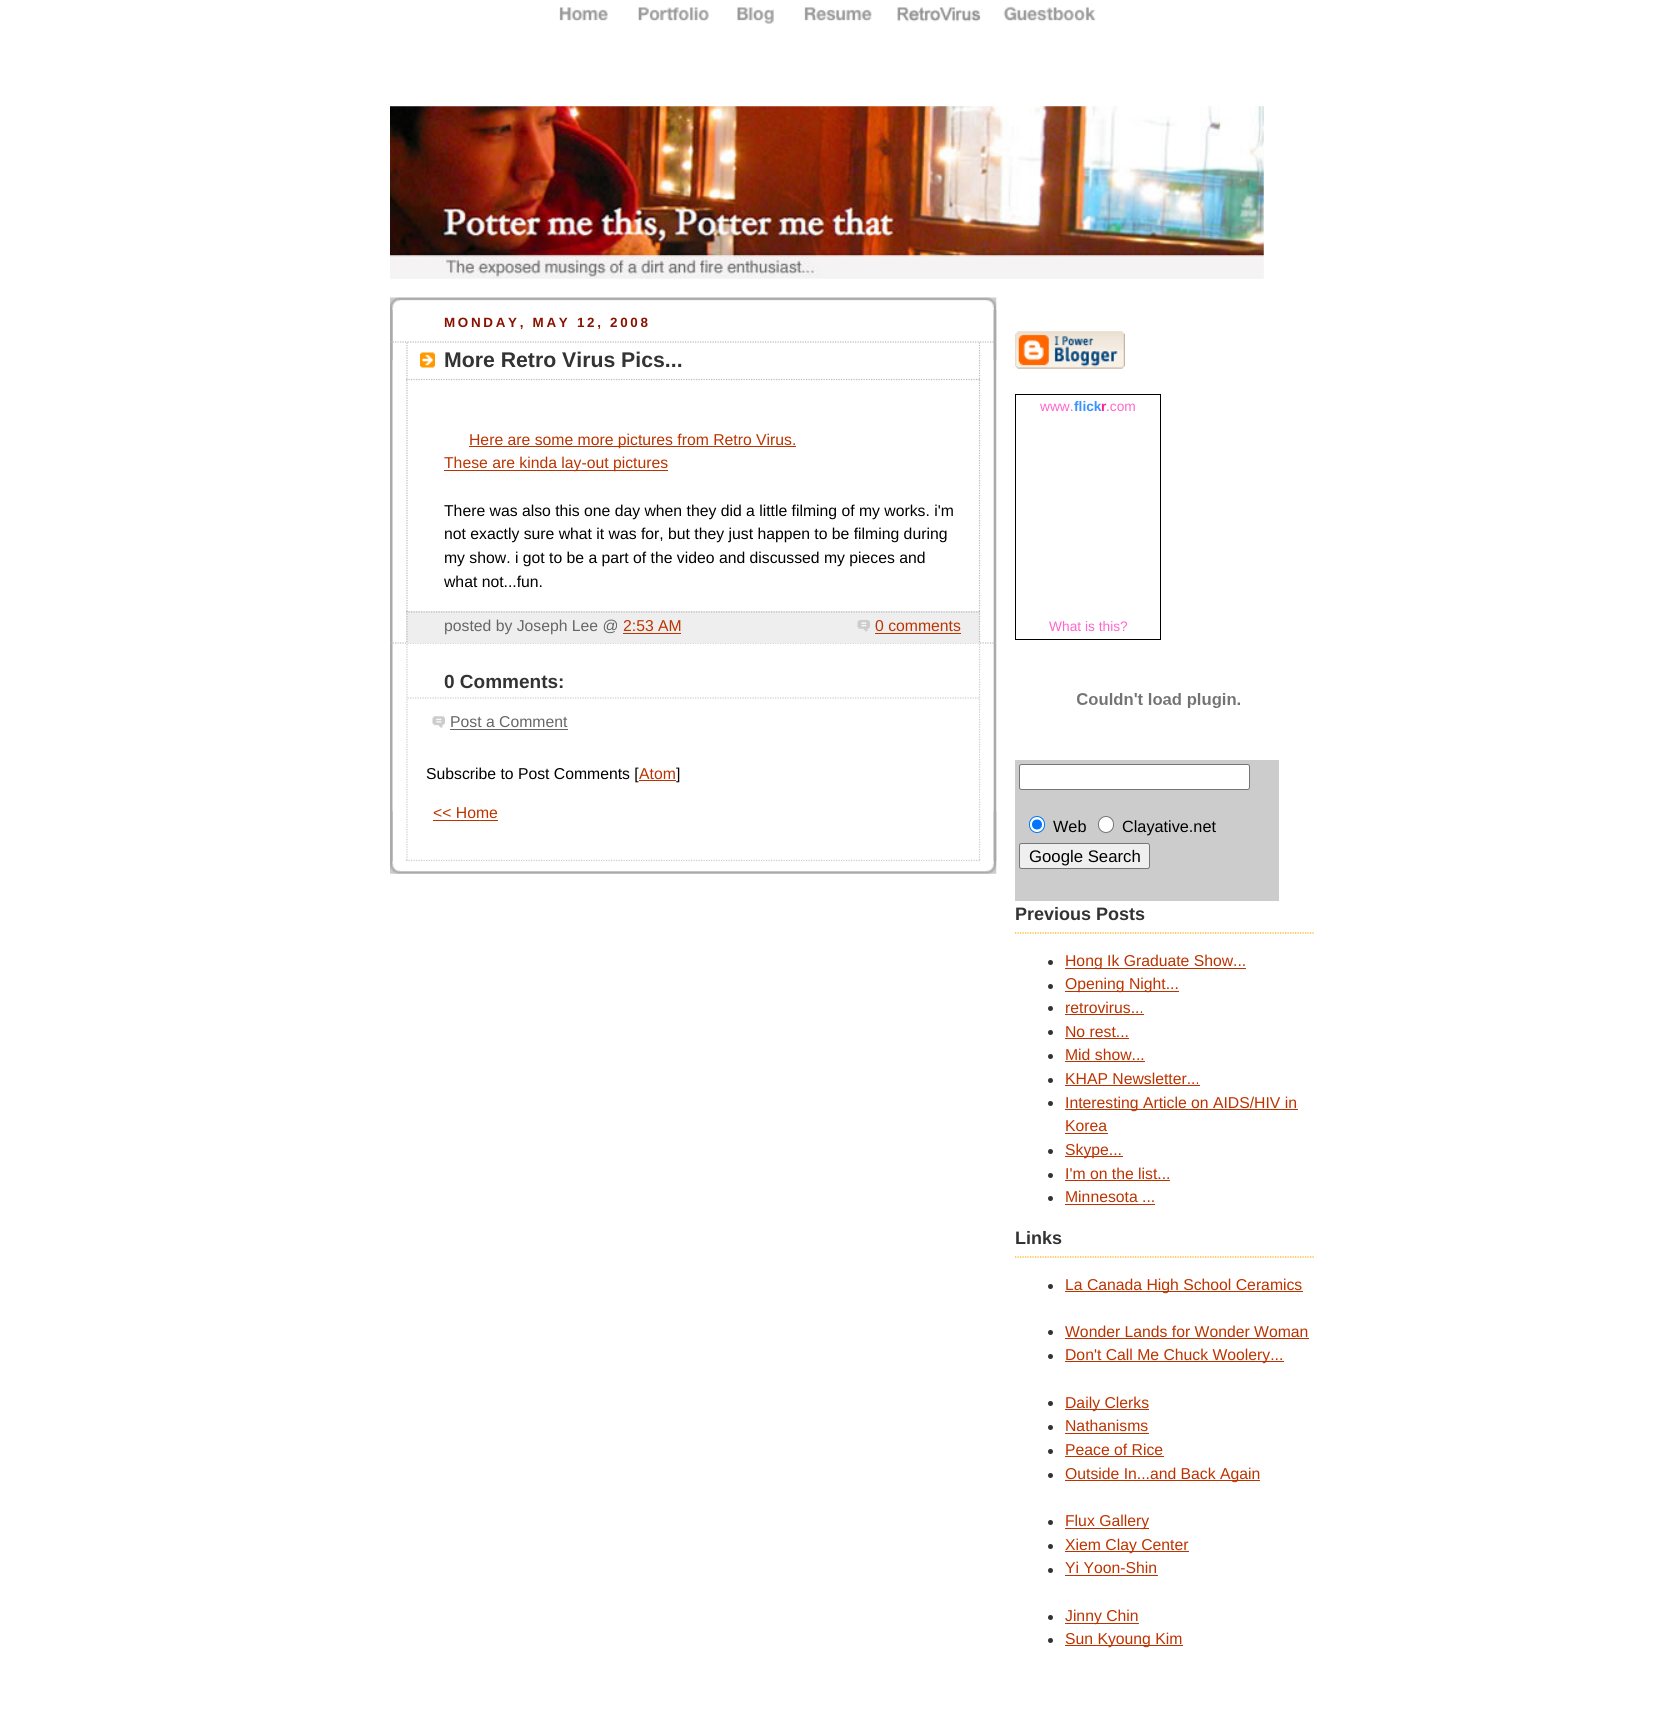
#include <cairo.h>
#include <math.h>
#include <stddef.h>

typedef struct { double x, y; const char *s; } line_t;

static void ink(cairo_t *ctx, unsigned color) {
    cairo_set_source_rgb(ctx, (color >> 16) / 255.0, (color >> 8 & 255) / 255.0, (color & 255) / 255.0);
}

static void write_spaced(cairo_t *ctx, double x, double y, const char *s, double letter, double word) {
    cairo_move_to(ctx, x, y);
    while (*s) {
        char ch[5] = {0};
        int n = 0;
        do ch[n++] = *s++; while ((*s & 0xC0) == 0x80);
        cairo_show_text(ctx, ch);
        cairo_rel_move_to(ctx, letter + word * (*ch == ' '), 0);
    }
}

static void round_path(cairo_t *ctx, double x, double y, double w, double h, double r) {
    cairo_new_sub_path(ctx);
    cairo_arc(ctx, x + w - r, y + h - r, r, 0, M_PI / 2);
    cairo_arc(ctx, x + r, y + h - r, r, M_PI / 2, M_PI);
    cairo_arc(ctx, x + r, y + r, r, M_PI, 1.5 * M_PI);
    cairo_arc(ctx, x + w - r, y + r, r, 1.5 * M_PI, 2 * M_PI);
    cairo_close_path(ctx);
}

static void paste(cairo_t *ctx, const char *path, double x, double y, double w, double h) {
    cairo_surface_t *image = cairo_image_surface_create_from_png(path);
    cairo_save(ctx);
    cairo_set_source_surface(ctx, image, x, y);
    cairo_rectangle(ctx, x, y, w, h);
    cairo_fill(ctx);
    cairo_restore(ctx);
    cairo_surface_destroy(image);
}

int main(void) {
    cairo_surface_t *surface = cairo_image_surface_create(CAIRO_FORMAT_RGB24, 1654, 1732);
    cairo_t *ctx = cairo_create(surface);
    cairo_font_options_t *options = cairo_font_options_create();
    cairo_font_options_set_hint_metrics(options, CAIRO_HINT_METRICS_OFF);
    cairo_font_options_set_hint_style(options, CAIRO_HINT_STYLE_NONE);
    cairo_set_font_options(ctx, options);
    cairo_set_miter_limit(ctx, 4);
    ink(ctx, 0xFFFFFF);
    cairo_paint(ctx);
    paste(ctx, "media/1.png", 559, 7, 49, 14);
    paste(ctx, "media/2.png", 638, 7, 71, 15);
    paste(ctx, "media/3.png", 737, 7, 37, 17);
    paste(ctx, "media/4.png", 804, 7, 68, 14);
    paste(ctx, "media/5.png", 897, 7, 84, 15);
    paste(ctx, "media/6.png", 1003, 6, 93, 16);
    paste(ctx, "media/7.png", 390, 106, 874, 173);
    paste(ctx, "media/8.png", 390, 811, 607, 63);
    paste(ctx, "media/9.png", 390, 297, 607, 63);
    paste(ctx, "media/10.png", 390, 310, 607, 552);
    cairo_select_font_face(ctx, "Liberation Sans", CAIRO_FONT_SLANT_NORMAL, CAIRO_FONT_WEIGHT_BOLD);
    cairo_set_font_size(ctx, 13.4);
    ink(ctx, 0x881100);
    write_spaced(ctx, 444, 327, "MONDAY, MAY 12, 2008", 2.7, 0);
    cairo_new_path(ctx);
    cairo_move_to(ctx, 390, 342);
    cairo_line_to(ctx, 996, 342);
    ink(ctx, 0xBBBBBB);
    cairo_set_line_width(ctx, 1.2);
    cairo_set_dash(ctx, (double[]){1.25, 1.25}, 2, 0);
    cairo_stroke(ctx);
    cairo_new_path(ctx);
    cairo_move_to(ctx, 390, 643);
    cairo_line_to(ctx, 996, 643);
    cairo_stroke(ctx);
    paste(ctx, "media/11.png", 420, 352, 15, 16);
    cairo_new_path(ctx);
    cairo_move_to(ctx, 979.5, 342.5);
    cairo_line_to(ctx, 979.5, 380);
    cairo_stroke(ctx);
    cairo_new_path(ctx);
    cairo_move_to(ctx, 406, 379.5);
    cairo_line_to(ctx, 980, 379.5);
    cairo_stroke(ctx);
    cairo_new_path(ctx);
    cairo_move_to(ctx, 407, 342.5);
    cairo_line_to(ctx, 407, 380);
    cairo_stroke(ctx);
    cairo_set_font_size(ctx, 21.25);
    ink(ctx, 0x333333);
    cairo_move_to(ctx, 444, 367);
    cairo_show_text(ctx, "More Retro Virus Pics...");
    cairo_new_path(ctx);
    cairo_move_to(ctx, 979.5, 380);
    cairo_line_to(ctx, 979.5, 611);
    ink(ctx, 0xBBBBBB);
    cairo_stroke(ctx);
    cairo_new_path(ctx);
    cairo_move_to(ctx, 407, 380);
    cairo_line_to(ctx, 407, 611);
    cairo_stroke(ctx);
    ink(ctx, 0xBB3300);
    cairo_rectangle(ctx, 469, 446, 327, 1);
    cairo_fill(ctx);
    cairo_select_font_face(ctx, "Liberation Sans", CAIRO_FONT_SLANT_NORMAL, CAIRO_FONT_WEIGHT_NORMAL);
    cairo_set_font_size(ctx, 15.75);
    cairo_move_to(ctx, 469, 445);
    cairo_show_text(ctx, "Here are some more pictures from Retro Virus.");
    cairo_rectangle(ctx, 444, 470, 224, 1);
    cairo_fill(ctx);
    cairo_move_to(ctx, 444, 468);
    cairo_show_text(ctx, "These are kinda lay-out pictures");
    ink(ctx, 0x000000);
    {
        static const line_t items[] = {
            {444, 516, "There was also this one day when they did a little filming of my works. i'm"},
            {444, 539, "not exactly sure what it was for, but they just happen to be filming during"},
            {444, 563, "my show. i got to be a part of the video and discussed my pieces and"},
            {444, 587, "what not...fun."},
        };
        for (size_t i = 0; i < sizeof items / sizeof *items; i++) {
            cairo_move_to(ctx, items[i].x, items[i].y);
            cairo_show_text(ctx, items[i].s);
        }
    }
    ink(ctx, 0xEEEEEE);
    cairo_rectangle(ctx, 406, 611, 574, 32);
    cairo_fill(ctx);
    cairo_new_path(ctx);
    cairo_move_to(ctx, 406, 612);
    cairo_line_to(ctx, 980, 612);
    ink(ctx, 0xBBBBBB);
    cairo_stroke(ctx);
    cairo_new_path(ctx);
    cairo_move_to(ctx, 979.5, 611);
    cairo_line_to(ctx, 979.5, 642.5);
    cairo_stroke(ctx);
    cairo_new_path(ctx);
    cairo_move_to(ctx, 407, 611);
    cairo_line_to(ctx, 407, 642.5);
    cairo_stroke(ctx);
    ink(ctx, 0x666666);
    cairo_move_to(ctx, 444, 631);
    cairo_show_text(ctx, "posted by Joseph Lee @");
    ink(ctx, 0xBB3300);
    cairo_move_to(ctx, 623, 631);
    cairo_show_text(ctx, "2:53 AM");
    cairo_rectangle(ctx, 623, 633, 58, 1);
    cairo_fill(ctx);
    paste(ctx, "media/12.png", 857, 620, 13, 12);
    cairo_move_to(ctx, 875, 631);
    cairo_show_text(ctx, "0 comments");
    cairo_rectangle(ctx, 875, 633, 86, 1);
    cairo_fill(ctx);
    cairo_new_path(ctx);
    cairo_move_to(ctx, 979.5, 644);
    cairo_line_to(ctx, 979.5, 861);
    ink(ctx, 0xCCCCCC);
    cairo_stroke(ctx);
    cairo_new_path(ctx);
    cairo_move_to(ctx, 406, 860.5);
    cairo_line_to(ctx, 980, 860.5);
    cairo_stroke(ctx);
    cairo_new_path(ctx);
    cairo_move_to(ctx, 407, 644);
    cairo_line_to(ctx, 407, 861);
    cairo_stroke(ctx);
    cairo_new_path(ctx);
    cairo_move_to(ctx, 407.5, 698);
    cairo_line_to(ctx, 979, 698);
    cairo_stroke(ctx);
    cairo_select_font_face(ctx, "Liberation Sans", CAIRO_FONT_SLANT_NORMAL, CAIRO_FONT_WEIGHT_BOLD);
    cairo_set_font_size(ctx, 19);
    ink(ctx, 0x333333);
    cairo_move_to(ctx, 444, 688);
    cairo_show_text(ctx, "0 Comments:");
    paste(ctx, "media/13.png", 432, 716, 13, 12);
    cairo_select_font_face(ctx, "Liberation Sans", CAIRO_FONT_SLANT_NORMAL, CAIRO_FONT_WEIGHT_NORMAL);
    cairo_set_font_size(ctx, 15.75);
    ink(ctx, 0x666666);
    cairo_move_to(ctx, 450, 727);
    cairo_show_text(ctx, "Post a Comment");
    cairo_rectangle(ctx, 450, 729, 118, 1);
    cairo_fill(ctx);
    ink(ctx, 0x000000);
    cairo_move_to(ctx, 426, 779);
    cairo_show_text(ctx, "Subscribe to Post Comments [");
    ink(ctx, 0xBB3300);
    cairo_move_to(ctx, 639, 779);
    cairo_show_text(ctx, "Atom");
    cairo_rectangle(ctx, 639, 780, 37, 1);
    cairo_fill(ctx);
    ink(ctx, 0x000000);
    cairo_move_to(ctx, 676, 779);
    cairo_show_text(ctx, "]");
    ink(ctx, 0xBB3300);
    cairo_move_to(ctx, 433, 818);
    cairo_show_text(ctx, "<< Home");
    cairo_rectangle(ctx, 433, 820, 65, 1);
    cairo_fill(ctx);
    paste(ctx, "media/14.png", 1015, 331, 110, 38);
    cairo_rectangle(ctx, 1015.5, 394.5, 145, 245);
    ink(ctx, 0x000000);
    cairo_set_line_width(ctx, 1);
    cairo_set_dash(ctx, NULL, 0, 0);
    cairo_stroke(ctx);
    cairo_set_font_size(ctx, 13.75);
    ink(ctx, 0xFF66CC);
    cairo_move_to(ctx, 1040, 411);
    cairo_show_text(ctx, "www.");
    cairo_select_font_face(ctx, "Liberation Sans", CAIRO_FONT_SLANT_NORMAL, CAIRO_FONT_WEIGHT_BOLD);
    ink(ctx, 0x3993FF);
    cairo_move_to(ctx, 1074, 411);
    cairo_show_text(ctx, "flick");
    ink(ctx, 0xFF1C92);
    cairo_move_to(ctx, 1101, 411);
    cairo_show_text(ctx, "r");
    cairo_select_font_face(ctx, "Liberation Sans", CAIRO_FONT_SLANT_NORMAL, CAIRO_FONT_WEIGHT_NORMAL);
    ink(ctx, 0xFF66CC);
    cairo_move_to(ctx, 1106, 411);
    cairo_show_text(ctx, ".com");
    cairo_move_to(ctx, 1049, 631);
    cairo_show_text(ctx, "What is this?");
    paste(ctx, "media/15.png", 1077, 693, 163, 15);
    ink(ctx, 0xCCCCCC);
    cairo_rectangle(ctx, 1015, 760, 264, 141);
    cairo_fill(ctx);
    ink(ctx, 0xFFFFFF);
    round_path(ctx, 1019.5, 764.5, 230, 25, 2);
    cairo_fill_preserve(ctx);
    ink(ctx, 0x767676);
    cairo_stroke(ctx);
    ink(ctx, 0xFFFFFF);
    round_path(ctx, 1029.5, 816.5, 15, 16, 7.5);
    cairo_fill_preserve(ctx);
    ink(ctx, 0x0075FF);
    cairo_stroke(ctx);
    cairo_arc(ctx, 1037, 824.5, 5, 0, 2 * M_PI);
    cairo_fill(ctx);
    cairo_set_font_size(ctx, 16.25);
    ink(ctx, 0x000000);
    cairo_move_to(ctx, 1053, 832);
    cairo_show_text(ctx, "Web");
    ink(ctx, 0xFFFFFF);
    round_path(ctx, 1098.5, 816.5, 15, 16, 7.5);
    cairo_fill_preserve(ctx);
    ink(ctx, 0x767676);
    cairo_stroke(ctx);
    ink(ctx, 0x000000);
    cairo_move_to(ctx, 1122, 832);
    cairo_show_text(ctx, "Clayative.net");
    ink(ctx, 0xEFEFEF);
    round_path(ctx, 1019.5, 843.5, 130, 25, 2);
    cairo_fill_preserve(ctx);
    ink(ctx, 0x767676);
    cairo_stroke(ctx);
    cairo_set_font_size(ctx, 16.75);
    ink(ctx, 0x000000);
    cairo_move_to(ctx, 1029, 862);
    cairo_show_text(ctx, "Google Search");
    cairo_new_path(ctx);
    cairo_move_to(ctx, 1015, 933);
    cairo_line_to(ctx, 1315, 933);
    ink(ctx, 0xFFAA00);
    cairo_set_line_width(ctx, 1.2);
    cairo_set_dash(ctx, (double[]){1.25, 1.25}, 2, 0);
    cairo_stroke(ctx);
    cairo_select_font_face(ctx, "Liberation Sans", CAIRO_FONT_SLANT_NORMAL, CAIRO_FONT_WEIGHT_BOLD);
    cairo_set_font_size(ctx, 18);
    ink(ctx, 0x333333);
    cairo_move_to(ctx, 1015, 920);
    cairo_show_text(ctx, "Previous Posts");
    cairo_new_path(ctx);
    cairo_arc(ctx, 1050.5, 962.5, 2.5, 0, 2 * M_PI);
    cairo_fill(ctx);
    ink(ctx, 0xBB3300);
    cairo_rectangle(ctx, 1065, 968, 181, 1);
    cairo_fill(ctx);
    cairo_select_font_face(ctx, "Liberation Sans", CAIRO_FONT_SLANT_NORMAL, CAIRO_FONT_WEIGHT_NORMAL);
    cairo_set_font_size(ctx, 15.75);
    cairo_move_to(ctx, 1065, 966);
    cairo_show_text(ctx, "Hong Ik Graduate Show...");
    ink(ctx, 0x333333);
    cairo_new_path(ctx);
    cairo_arc(ctx, 1050.5, 986.5, 2.5, 0, 2 * M_PI);
    cairo_fill(ctx);
    ink(ctx, 0xBB3300);
    cairo_rectangle(ctx, 1065, 991, 114, 1);
    cairo_fill(ctx);
    cairo_move_to(ctx, 1065, 989);
    cairo_show_text(ctx, "Opening Night...");
    ink(ctx, 0x333333);
    cairo_new_path(ctx);
    cairo_arc(ctx, 1050.5, 1008.5, 2.5, 0, 2 * M_PI);
    cairo_fill(ctx);
    ink(ctx, 0xBB3300);
    cairo_move_to(ctx, 1065, 1013);
    cairo_show_text(ctx, "retrovirus...");
    cairo_rectangle(ctx, 1065, 1014, 79, 1);
    cairo_fill(ctx);
    ink(ctx, 0x333333);
    cairo_arc(ctx, 1050.5, 1032.5, 2.5, 0, 2 * M_PI);
    cairo_fill(ctx);
    ink(ctx, 0xBB3300);
    cairo_move_to(ctx, 1065, 1037);
    cairo_show_text(ctx, "No rest...");
    cairo_rectangle(ctx, 1065, 1038, 64, 1);
    cairo_fill(ctx);
    ink(ctx, 0x333333);
    cairo_arc(ctx, 1050.5, 1056.5, 2.5, 0, 2 * M_PI);
    cairo_fill(ctx);
    ink(ctx, 0xBB3300);
    cairo_move_to(ctx, 1065, 1060);
    cairo_show_text(ctx, "Mid show...");
    cairo_rectangle(ctx, 1065, 1061, 80, 1);
    cairo_fill(ctx);
    ink(ctx, 0x333333);
    cairo_arc(ctx, 1050.5, 1080.5, 2.5, 0, 2 * M_PI);
    cairo_fill(ctx);
    ink(ctx, 0xBB3300);
    cairo_move_to(ctx, 1065, 1084);
    cairo_show_text(ctx, "KHAP Newsletter...");
    cairo_rectangle(ctx, 1065, 1085, 135, 1);
    cairo_fill(ctx);
    ink(ctx, 0x333333);
    cairo_arc(ctx, 1050.5, 1103.5, 2.5, 0, 2 * M_PI);
    cairo_fill(ctx);
    ink(ctx, 0xBB3300);
    cairo_rectangle(ctx, 1065, 1109, 233, 1);
    cairo_fill(ctx);
    cairo_move_to(ctx, 1065, 1108);
    cairo_show_text(ctx, "Interesting Article on AIDS/HIV in");
    cairo_move_to(ctx, 1065, 1131);
    cairo_show_text(ctx, "Korea");
    cairo_rectangle(ctx, 1065, 1133, 43, 1);
    cairo_fill(ctx);
    ink(ctx, 0x333333);
    cairo_arc(ctx, 1050.5, 1151.5, 2.5, 0, 2 * M_PI);
    cairo_fill(ctx);
    ink(ctx, 0xBB3300);
    cairo_rectangle(ctx, 1065, 1156, 58, 1);
    cairo_fill(ctx);
    cairo_move_to(ctx, 1065, 1155);
    cairo_show_text(ctx, "Skype...");
    ink(ctx, 0x333333);
    cairo_new_path(ctx);
    cairo_arc(ctx, 1050.5, 1175.5, 2.5, 0, 2 * M_PI);
    cairo_fill(ctx);
    ink(ctx, 0xBB3300);
    cairo_move_to(ctx, 1065, 1179);
    cairo_show_text(ctx, "I'm on the list...");
    cairo_rectangle(ctx, 1065, 1180, 105, 1);
    cairo_fill(ctx);
    ink(ctx, 0x333333);
    cairo_arc(ctx, 1050.5, 1198.5, 2.5, 0, 2 * M_PI);
    cairo_fill(ctx);
    ink(ctx, 0xBB3300);
    cairo_move_to(ctx, 1065, 1202);
    cairo_show_text(ctx, "Minnesota ...");
    cairo_rectangle(ctx, 1065, 1204, 90, 1);
    cairo_fill(ctx);
    cairo_new_path(ctx);
    cairo_move_to(ctx, 1015, 1257);
    cairo_line_to(ctx, 1315, 1257);
    ink(ctx, 0xFFAA00);
    cairo_stroke(ctx);
    cairo_select_font_face(ctx, "Liberation Sans", CAIRO_FONT_SLANT_NORMAL, CAIRO_FONT_WEIGHT_BOLD);
    cairo_set_font_size(ctx, 18);
    ink(ctx, 0x333333);
    cairo_move_to(ctx, 1015, 1244);
    cairo_show_text(ctx, "Links");
    cairo_new_path(ctx);
    cairo_arc(ctx, 1050.5, 1286.5, 2.5, 0, 2 * M_PI);
    cairo_fill(ctx);
    ink(ctx, 0xBB3300);
    cairo_rectangle(ctx, 1065, 1291, 238, 1);
    cairo_fill(ctx);
    cairo_select_font_face(ctx, "Liberation Sans", CAIRO_FONT_SLANT_NORMAL, CAIRO_FONT_WEIGHT_NORMAL);
    cairo_set_font_size(ctx, 15.75);
    cairo_move_to(ctx, 1065, 1290);
    cairo_show_text(ctx, "La Canada High School Ceramics");
    ink(ctx, 0x333333);
    cairo_new_path(ctx);
    cairo_arc(ctx, 1050.5, 1332.5, 2.5, 0, 2 * M_PI);
    cairo_fill(ctx);
    ink(ctx, 0xBB3300);
    cairo_move_to(ctx, 1065, 1337);
    cairo_show_text(ctx, "Wonder Lands for Wonder Woman");
    cairo_rectangle(ctx, 1065, 1338, 244, 1);
    cairo_fill(ctx);
    ink(ctx, 0x333333);
    cairo_arc(ctx, 1050.5, 1356.5, 2.5, 0, 2 * M_PI);
    cairo_fill(ctx);
    ink(ctx, 0xBB3300);
    cairo_rectangle(ctx, 1065, 1361, 219, 1);
    cairo_fill(ctx);
    cairo_move_to(ctx, 1065, 1360);
    cairo_show_text(ctx, "Don't Call Me Chuck Woolery...");
    ink(ctx, 0x333333);
    cairo_new_path(ctx);
    cairo_arc(ctx, 1050.5, 1403.5, 2.5, 0, 2 * M_PI);
    cairo_fill(ctx);
    ink(ctx, 0xBB3300);
    cairo_rectangle(ctx, 1065, 1409, 84, 1);
    cairo_fill(ctx);
    cairo_move_to(ctx, 1065, 1408);
    cairo_show_text(ctx, "Daily Clerks");
    ink(ctx, 0x333333);
    cairo_new_path(ctx);
    cairo_arc(ctx, 1050.5, 1427.5, 2.5, 0, 2 * M_PI);
    cairo_fill(ctx);
    ink(ctx, 0xBB3300);
    cairo_move_to(ctx, 1065, 1431);
    cairo_show_text(ctx, "Nathanisms");
    cairo_rectangle(ctx, 1065, 1433, 84, 1);
    cairo_fill(ctx);
    ink(ctx, 0x333333);
    cairo_arc(ctx, 1050.5, 1451.5, 2.5, 0, 2 * M_PI);
    cairo_fill(ctx);
    ink(ctx, 0xBB3300);
    cairo_move_to(ctx, 1065, 1455);
    cairo_show_text(ctx, "Peace of Rice");
    cairo_rectangle(ctx, 1065, 1456, 99, 1);
    cairo_fill(ctx);
    ink(ctx, 0x333333);
    cairo_arc(ctx, 1050.5, 1475.5, 2.5, 0, 2 * M_PI);
    cairo_fill(ctx);
    ink(ctx, 0xBB3300);
    cairo_rectangle(ctx, 1065, 1480, 195, 1);
    cairo_fill(ctx);
    cairo_move_to(ctx, 1065, 1479);
    cairo_show_text(ctx, "Outside In...and Back Again");
    ink(ctx, 0x333333);
    cairo_new_path(ctx);
    cairo_arc(ctx, 1050.5, 1522.5, 2.5, 0, 2 * M_PI);
    cairo_fill(ctx);
    ink(ctx, 0xBB3300);
    cairo_rectangle(ctx, 1065, 1528, 84, 1);
    cairo_fill(ctx);
    cairo_move_to(ctx, 1065, 1526);
    cairo_show_text(ctx, "Flux Gallery");
    ink(ctx, 0x333333);
    cairo_new_path(ctx);
    cairo_arc(ctx, 1050.5, 1546.5, 2.5, 0, 2 * M_PI);
    cairo_fill(ctx);
    ink(ctx, 0xBB3300);
    cairo_rectangle(ctx, 1065, 1551, 124, 1);
    cairo_fill(ctx);
    cairo_move_to(ctx, 1065, 1550);
    cairo_show_text(ctx, "Xiem Clay Center");
    ink(ctx, 0x333333);
    cairo_new_path(ctx);
    cairo_arc(ctx, 1050.5, 1570.5, 2.5, 0, 2 * M_PI);
    cairo_fill(ctx);
    ink(ctx, 0xBB3300);
    cairo_move_to(ctx, 1065, 1573);
    cairo_show_text(ctx, "Yi Yoon-Shin");
    cairo_rectangle(ctx, 1065, 1575, 93, 1);
    cairo_fill(ctx);
    ink(ctx, 0x333333);
    cairo_arc(ctx, 1050.5, 1617.5, 2.5, 0, 2 * M_PI);
    cairo_fill(ctx);
    ink(ctx, 0xBB3300);
    cairo_rectangle(ctx, 1065, 1623, 74, 1);
    cairo_fill(ctx);
    cairo_move_to(ctx, 1065, 1621);
    cairo_show_text(ctx, "Jinny Chin");
    ink(ctx, 0x333333);
    cairo_new_path(ctx);
    cairo_arc(ctx, 1050.5, 1640.5, 2.5, 0, 2 * M_PI);
    cairo_fill(ctx);
    ink(ctx, 0xBB3300);
    cairo_rectangle(ctx, 1065, 1645, 118, 1);
    cairo_fill(ctx);
    cairo_move_to(ctx, 1065, 1644);
    cairo_show_text(ctx, "Sun Kyoung Kim");
    cairo_surface_write_to_png(surface, "image.png");
    cairo_font_options_destroy(options);
    cairo_destroy(ctx);
    cairo_surface_destroy(surface);
    return 0;
}
